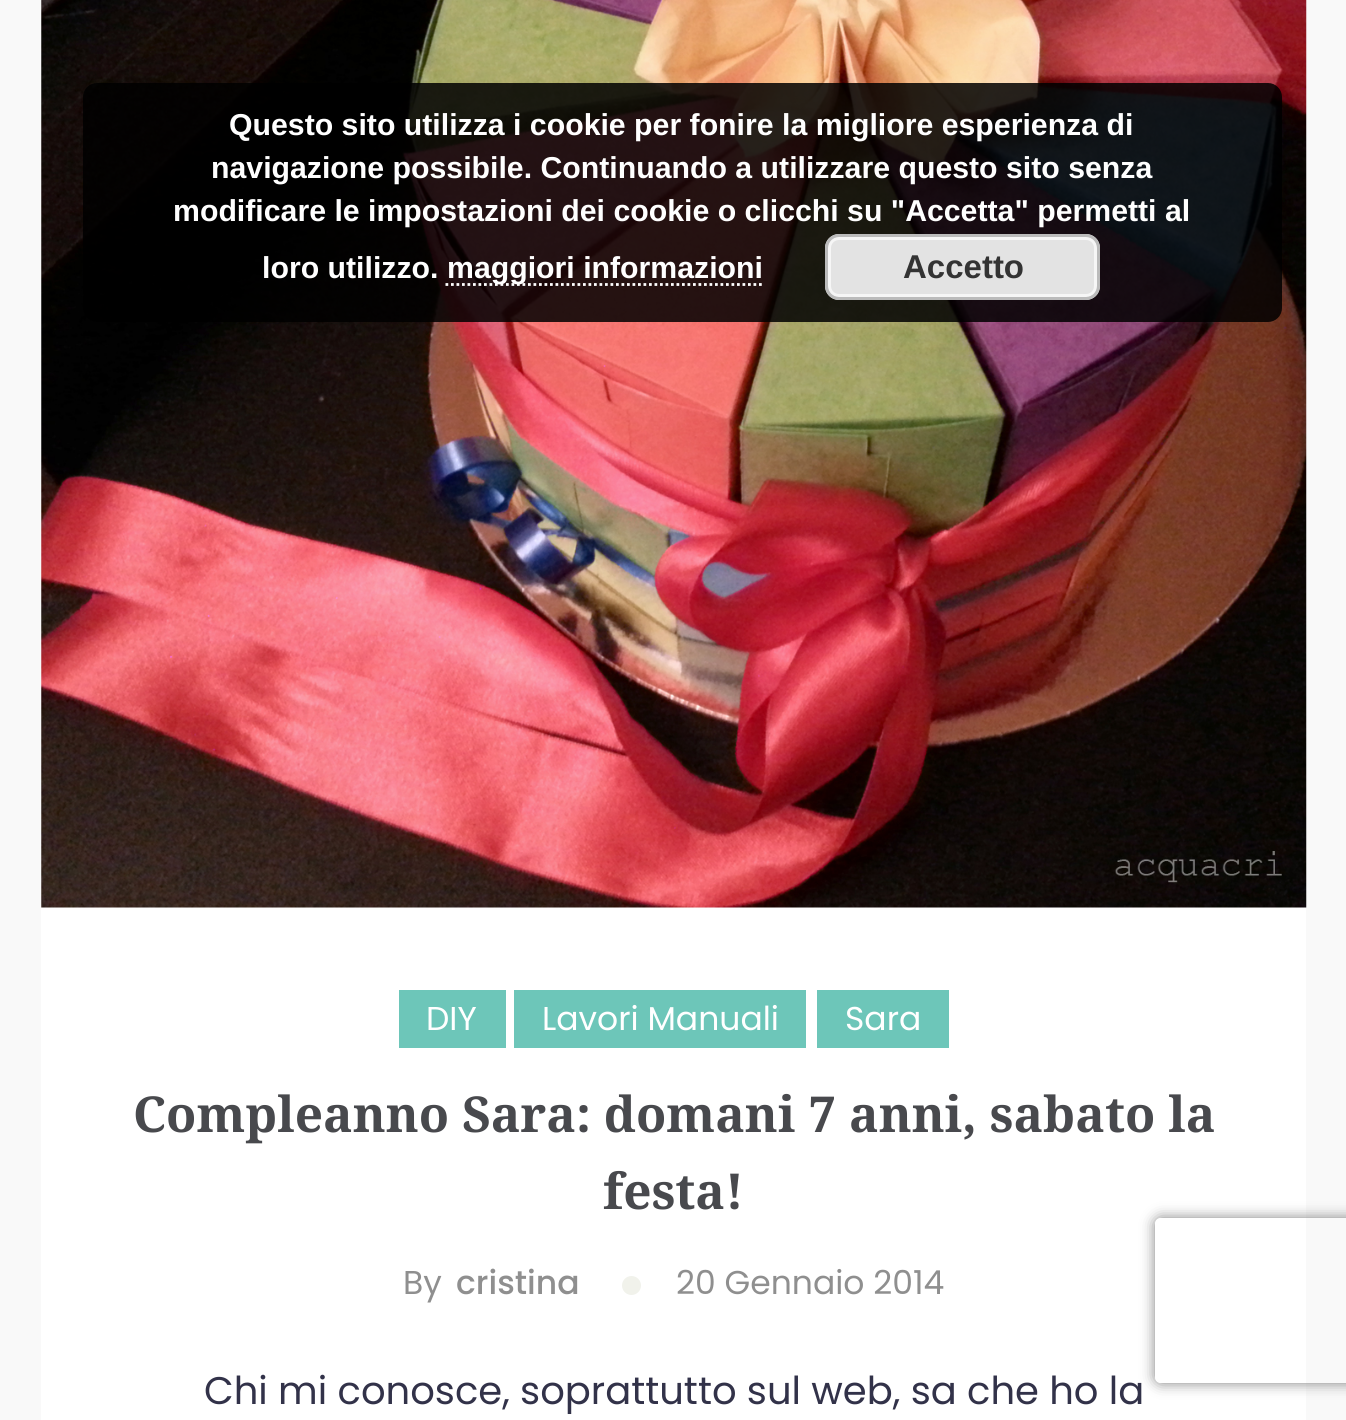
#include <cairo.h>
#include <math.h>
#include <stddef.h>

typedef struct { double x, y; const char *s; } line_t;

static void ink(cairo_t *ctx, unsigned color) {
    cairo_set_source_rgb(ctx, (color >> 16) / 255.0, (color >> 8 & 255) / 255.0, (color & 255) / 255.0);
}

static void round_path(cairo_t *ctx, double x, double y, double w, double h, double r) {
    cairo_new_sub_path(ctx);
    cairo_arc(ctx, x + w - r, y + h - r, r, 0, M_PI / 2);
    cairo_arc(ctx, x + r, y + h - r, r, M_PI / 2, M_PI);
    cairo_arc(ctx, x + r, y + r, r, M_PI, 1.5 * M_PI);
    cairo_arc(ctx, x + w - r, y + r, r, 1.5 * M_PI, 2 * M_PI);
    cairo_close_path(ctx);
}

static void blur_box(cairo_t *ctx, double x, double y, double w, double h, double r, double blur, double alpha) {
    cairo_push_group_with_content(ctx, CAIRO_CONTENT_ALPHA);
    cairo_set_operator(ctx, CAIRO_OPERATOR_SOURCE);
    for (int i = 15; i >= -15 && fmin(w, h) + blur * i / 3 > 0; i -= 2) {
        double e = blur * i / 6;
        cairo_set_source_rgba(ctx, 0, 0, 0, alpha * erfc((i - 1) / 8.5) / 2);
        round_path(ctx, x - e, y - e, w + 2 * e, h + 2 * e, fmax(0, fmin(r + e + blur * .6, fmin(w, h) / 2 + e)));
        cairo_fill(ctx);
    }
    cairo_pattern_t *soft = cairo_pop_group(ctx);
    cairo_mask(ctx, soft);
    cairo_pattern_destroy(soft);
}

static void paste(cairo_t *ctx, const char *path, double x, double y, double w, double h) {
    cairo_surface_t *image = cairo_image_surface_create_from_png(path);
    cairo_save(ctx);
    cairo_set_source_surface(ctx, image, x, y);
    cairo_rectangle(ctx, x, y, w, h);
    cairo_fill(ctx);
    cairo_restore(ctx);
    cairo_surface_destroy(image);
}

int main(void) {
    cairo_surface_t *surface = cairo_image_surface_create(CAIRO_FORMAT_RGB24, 1346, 1420);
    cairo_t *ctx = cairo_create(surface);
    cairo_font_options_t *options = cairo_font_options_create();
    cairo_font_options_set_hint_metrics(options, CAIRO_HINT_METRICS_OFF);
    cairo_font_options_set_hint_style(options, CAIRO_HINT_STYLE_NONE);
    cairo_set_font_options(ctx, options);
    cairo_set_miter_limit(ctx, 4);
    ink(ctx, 0xF9F9F9);
    cairo_paint(ctx);
    ink(ctx, 0xFFFFFF);
    cairo_rectangle(ctx, 41, 0, 1265, 1420);
    cairo_fill(ctx);
    paste(ctx, "media/1.png", 41, 0, 1266, 908);
    cairo_set_source_rgba(ctx, 0, 0, 0, 0.85);
    round_path(ctx, 83, 83, 1199, 239, 14);
    cairo_fill(ctx);
    cairo_select_font_face(ctx, "Liberation Sans", CAIRO_FONT_SLANT_NORMAL, CAIRO_FONT_WEIGHT_BOLD);
    cairo_set_font_size(ctx, 30.25);
    ink(ctx, 0xFFFFFF);
    {
        static const line_t items[] = {
            {229, 135, "Questo sito utilizza i cookie per fonire la migliore esperienza di"},
            {211, 178, "navigazione possibile. Continuando a utilizzare questo sito senza"},
            {173, 221, "modificare le impostazioni dei cookie o clicchi su \"Accetta\" permetti al"},
            {262, 278, "loro utilizzo."},
        };
        for (size_t i = 0; i < sizeof items / sizeof *items; i++) {
            cairo_move_to(ctx, items[i].x, items[i].y);
            cairo_show_text(ctx, items[i].s);
        }
    }
    cairo_new_path(ctx);
    cairo_move_to(ctx, 445.5, 284.5);
    cairo_line_to(ctx, 762, 284.5);
    cairo_set_line_width(ctx, 2.8);
    cairo_set_dash(ctx, (double[]){2.75, 2.75}, 2, 0);
    cairo_stroke(ctx);
    cairo_move_to(ctx, 447, 278);
    cairo_show_text(ctx, "maggiori informazioni");
    ink(ctx, 0xE3E3E3);
    round_path(ctx, 825, 234, 275, 66, 14);
    cairo_fill(ctx);
    round_path(ctx, 829.5, 238.5, 266, 57, 9.5);
    ink(ctx, 0xF6F6F6);
    cairo_set_line_width(ctx, 3);
    cairo_set_dash(ctx, NULL, 0, 0);
    cairo_stroke(ctx);
    round_path(ctx, 826.5, 235.5, 272, 63, 12.5);
    ink(ctx, 0xBBBBBB);
    cairo_stroke(ctx);
    cairo_set_font_size(ctx, 33);
    ink(ctx, 0x333333);
    cairo_move_to(ctx, 903, 278);
    cairo_show_text(ctx, "Accetto");
    ink(ctx, 0x6DC6B9);
    cairo_rectangle(ctx, 399, 990, 107, 58);
    cairo_fill(ctx);
    cairo_select_font_face(ctx, "Poppins", CAIRO_FONT_SLANT_NORMAL, CAIRO_FONT_WEIGHT_NORMAL);
    ink(ctx, 0xFFFFFF);
    cairo_move_to(ctx, 426, 1030);
    cairo_show_text(ctx, "DIY");
    ink(ctx, 0x6DC6B9);
    cairo_rectangle(ctx, 514, 990, 292, 58);
    cairo_fill(ctx);
    ink(ctx, 0xFFFFFF);
    cairo_move_to(ctx, 542, 1030);
    cairo_show_text(ctx, "Lavori Manuali");
    ink(ctx, 0x6DC6B9);
    cairo_rectangle(ctx, 817, 990, 132, 58);
    cairo_fill(ctx);
    ink(ctx, 0xFFFFFF);
    cairo_move_to(ctx, 845, 1030);
    cairo_show_text(ctx, "Sara");
    cairo_select_font_face(ctx, "Noto Serif", CAIRO_FONT_SLANT_NORMAL, CAIRO_FONT_WEIGHT_BOLD);
    cairo_set_font_size(ctx, 49.5);
    ink(ctx, 0x48494D);
    cairo_move_to(ctx, 133, 1132);
    cairo_show_text(ctx, "Compleanno Sara: domani 7 anni, sabato la");
    cairo_move_to(ctx, 603, 1209);
    cairo_show_text(ctx, "festa!");
    cairo_select_font_face(ctx, "Poppins", CAIRO_FONT_SLANT_NORMAL, CAIRO_FONT_WEIGHT_NORMAL);
    cairo_set_font_size(ctx, 33);
    ink(ctx, 0x8F8F8F);
    cairo_move_to(ctx, 403, 1294);
    cairo_show_text(ctx, "By");
    cairo_select_font_face(ctx, "Poppins Medium", CAIRO_FONT_SLANT_NORMAL, CAIRO_FONT_WEIGHT_NORMAL);
    cairo_move_to(ctx, 456, 1294);
    cairo_show_text(ctx, "cristina");
    ink(ctx, 0xF1F2EB);
    cairo_new_path(ctx);
    cairo_arc(ctx, 631.5, 1285.5, 9.5, 0, 2 * M_PI);
    cairo_fill(ctx);
    cairo_select_font_face(ctx, "Poppins", CAIRO_FONT_SLANT_NORMAL, CAIRO_FONT_WEIGHT_NORMAL);
    ink(ctx, 0x8F8F8F);
    cairo_move_to(ctx, 676, 1294);
    cairo_show_text(ctx, "20 Gennaio 2014");
    cairo_set_font_size(ctx, 38.5);
    ink(ctx, 0x323249);
    cairo_move_to(ctx, 204, 1404);
    cairo_show_text(ctx, "Chi mi conosce, soprattutto sul web, sa che ho la");
    cairo_save(ctx);
    cairo_set_fill_rule(ctx, CAIRO_FILL_RULE_EVEN_ODD);
    cairo_new_path(ctx);
    cairo_move_to(ctx, 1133, 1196);
    cairo_line_to(ctx, 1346, 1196);
    cairo_line_to(ctx, 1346, 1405);
    cairo_line_to(ctx, 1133, 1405);
    cairo_close_path(ctx);
    cairo_move_to(ctx, 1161, 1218);
    cairo_line_to(ctx, 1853, 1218);
    cairo_curve_to(ctx, 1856.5, 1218, 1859, 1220.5, 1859, 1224);
    cairo_line_to(ctx, 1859, 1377);
    cairo_curve_to(ctx, 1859, 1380.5, 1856.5, 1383, 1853, 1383);
    cairo_line_to(ctx, 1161, 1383);
    cairo_curve_to(ctx, 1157.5, 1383, 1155, 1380.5, 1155, 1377);
    cairo_line_to(ctx, 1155, 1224);
    cairo_curve_to(ctx, 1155, 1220.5, 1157.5, 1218, 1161, 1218);
    cairo_close_path(ctx);
    cairo_clip(ctx);
    ink(ctx, 0x808080);
    blur_box(ctx, 1155, 1218, 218, 165, 6, 7, 1);
    cairo_restore(ctx);
    cairo_surface_write_to_png(surface, "image.png");
    cairo_font_options_destroy(options);
    cairo_destroy(ctx);
    cairo_surface_destroy(surface);
    return 0;
}
